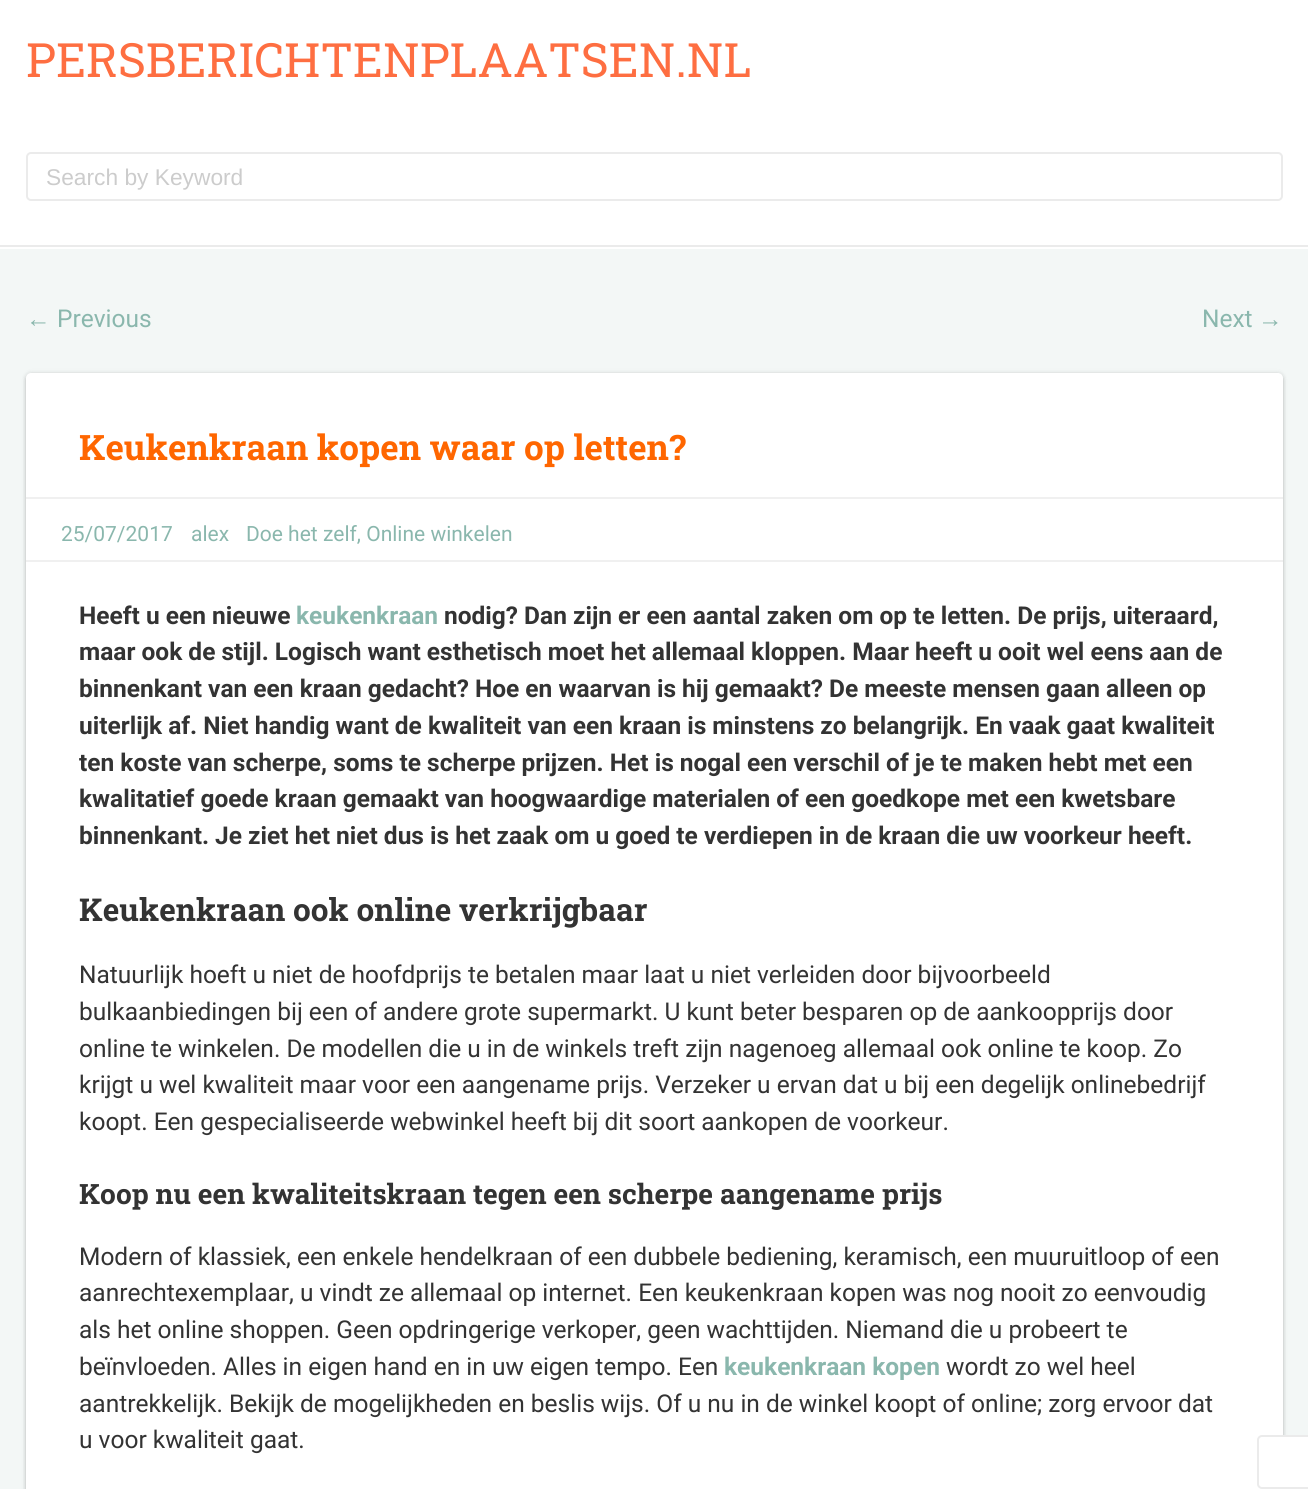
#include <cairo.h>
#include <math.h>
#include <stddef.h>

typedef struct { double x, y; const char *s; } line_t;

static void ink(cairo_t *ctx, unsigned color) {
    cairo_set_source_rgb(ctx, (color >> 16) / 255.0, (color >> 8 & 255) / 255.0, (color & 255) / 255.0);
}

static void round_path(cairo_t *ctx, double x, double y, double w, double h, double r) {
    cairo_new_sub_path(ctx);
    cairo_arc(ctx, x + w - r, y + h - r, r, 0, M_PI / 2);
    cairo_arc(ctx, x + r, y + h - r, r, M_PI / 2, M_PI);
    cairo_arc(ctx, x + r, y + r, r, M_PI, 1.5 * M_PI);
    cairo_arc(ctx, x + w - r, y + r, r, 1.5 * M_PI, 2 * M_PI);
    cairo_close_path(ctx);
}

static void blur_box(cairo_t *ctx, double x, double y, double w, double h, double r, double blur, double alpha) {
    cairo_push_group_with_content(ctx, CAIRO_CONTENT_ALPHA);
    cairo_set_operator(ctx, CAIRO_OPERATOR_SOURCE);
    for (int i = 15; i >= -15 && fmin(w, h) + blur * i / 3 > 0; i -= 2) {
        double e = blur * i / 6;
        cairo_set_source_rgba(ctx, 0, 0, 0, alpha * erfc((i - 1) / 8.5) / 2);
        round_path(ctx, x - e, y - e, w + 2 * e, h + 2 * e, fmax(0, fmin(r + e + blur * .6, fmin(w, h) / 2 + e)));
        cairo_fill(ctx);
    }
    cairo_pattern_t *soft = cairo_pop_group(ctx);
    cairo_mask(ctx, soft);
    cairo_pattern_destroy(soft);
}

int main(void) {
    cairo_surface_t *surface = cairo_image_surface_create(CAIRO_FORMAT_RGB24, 1308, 1489);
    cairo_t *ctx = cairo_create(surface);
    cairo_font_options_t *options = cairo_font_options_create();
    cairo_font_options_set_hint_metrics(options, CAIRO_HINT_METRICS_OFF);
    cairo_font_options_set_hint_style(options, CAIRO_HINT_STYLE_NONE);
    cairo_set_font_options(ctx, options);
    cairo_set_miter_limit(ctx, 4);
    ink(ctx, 0xFFFFFF);
    cairo_paint(ctx);
    ink(ctx, 0xEBEBEB);
    cairo_rectangle(ctx, 0, 245, 1308, 2);
    cairo_fill(ctx);
    cairo_select_font_face(ctx, "Roboto Slab", CAIRO_FONT_SLANT_NORMAL, CAIRO_FONT_WEIGHT_NORMAL);
    cairo_set_font_size(ctx, 47.25);
    ink(ctx, 0xFE6E41);
    cairo_move_to(ctx, 26, 77);
    cairo_show_text(ctx, "PERSBERICHTENPLAATSEN.NL");
    round_path(ctx, 27, 153, 1255, 47, 4);
    ink(ctx, 0xEBEBEB);
    cairo_stroke(ctx);
    cairo_select_font_face(ctx, "Liberation Sans", CAIRO_FONT_SLANT_NORMAL, CAIRO_FONT_WEIGHT_NORMAL);
    cairo_set_font_size(ctx, 22.75);
    ink(ctx, 0xCCCCCC);
    cairo_move_to(ctx, 46, 185);
    cairo_show_text(ctx, "Search by Keyword");
    ink(ctx, 0xF3F7F6);
    cairo_rectangle(ctx, 0, 249, 1308, 1240);
    cairo_fill(ctx);
    cairo_select_font_face(ctx, "Liberation Serif", CAIRO_FONT_SLANT_NORMAL, CAIRO_FONT_WEIGHT_NORMAL);
    cairo_set_font_size(ctx, 24.5);
    ink(ctx, 0x8AB7AD);
    cairo_move_to(ctx, 26, 327);
    cairo_show_text(ctx, "←");
    cairo_select_font_face(ctx, "Roboto", CAIRO_FONT_SLANT_NORMAL, CAIRO_FONT_WEIGHT_NORMAL);
    cairo_move_to(ctx, 57, 327);
    cairo_show_text(ctx, "Previous");
    cairo_move_to(ctx, 1202, 327);
    cairo_show_text(ctx, "Next");
    cairo_select_font_face(ctx, "Liberation Serif", CAIRO_FONT_SLANT_NORMAL, CAIRO_FONT_WEIGHT_NORMAL);
    cairo_move_to(ctx, 1258, 327);
    cairo_show_text(ctx, "→");
    ink(ctx, 0x000000);
    blur_box(ctx, 26, 373, 1257, 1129, 5, 2.5, 0.1);
    blur_box(ctx, 26, 375, 1257, 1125, 5, 2, 0.2);
    ink(ctx, 0xFFFFFF);
    round_path(ctx, 26, 373, 1257, 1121, 5);
    cairo_fill(ctx);
    cairo_select_font_face(ctx, "Roboto Slab", CAIRO_FONT_SLANT_NORMAL, CAIRO_FONT_WEIGHT_BOLD);
    cairo_set_font_size(ctx, 35);
    ink(ctx, 0xFF6600);
    cairo_move_to(ctx, 79, 460);
    cairo_show_text(ctx, "Keukenkraan kopen waar op letten?");
    ink(ctx, 0xF0F0F0);
    cairo_rectangle(ctx, 26, 497, 1257, 2);
    cairo_fill(ctx);
    cairo_rectangle(ctx, 26, 560, 1257, 2);
    cairo_fill(ctx);
    cairo_select_font_face(ctx, "Roboto", CAIRO_FONT_SLANT_NORMAL, CAIRO_FONT_WEIGHT_NORMAL);
    cairo_set_font_size(ctx, 21);
    ink(ctx, 0x8AB7AD);
    {
        static const line_t items[] = {
            {61, 541, "25/07/2017"},
            {191, 541, "alex"},
            {246, 541, "Doe het zelf, Online winkelen"},
        };
        for (size_t i = 0; i < sizeof items / sizeof *items; i++) {
            cairo_move_to(ctx, items[i].x, items[i].y);
            cairo_show_text(ctx, items[i].s);
        }
    }
    cairo_select_font_face(ctx, "Roboto", CAIRO_FONT_SLANT_NORMAL, CAIRO_FONT_WEIGHT_BOLD);
    cairo_set_font_size(ctx, 24.5);
    ink(ctx, 0x333333);
    cairo_move_to(ctx, 79, 624);
    cairo_show_text(ctx, "Heeft u een nieuwe");
    ink(ctx, 0x8AB7AD);
    cairo_move_to(ctx, 296, 624);
    cairo_show_text(ctx, "keukenkraan");
    ink(ctx, 0x333333);
    {
        static const line_t items[] = {
            {444, 624, "nodig? Dan zijn er een aantal zaken om op te letten. De prijs, uiteraard,"},
            {79, 660, "maar ook de stijl. Logisch want esthetisch moet het allemaal kloppen. Maar heeft u ooit wel eens aan de"},
            {79, 697, "binnenkant van een kraan gedacht? Hoe en waarvan is hij gemaakt? De meeste mensen gaan alleen op"},
            {79, 734, "uiterlijk af. Niet handig want de kwaliteit van een kraan is minstens zo belangrijk. En vaak gaat kwaliteit"},
            {79, 771, "ten koste van scherpe, soms te scherpe prijzen. Het is nogal een verschil of je te maken hebt met een"},
            {79, 807, "kwalitatief goede kraan gemaakt van hoogwaardige materialen of een goedkope met een kwetsbare"},
            {79, 844, "binnenkant. Je ziet het niet dus is het zaak om u goed te verdiepen in de kraan die uw voorkeur heeft."},
        };
        for (size_t i = 0; i < sizeof items / sizeof *items; i++) {
            cairo_move_to(ctx, items[i].x, items[i].y);
            cairo_show_text(ctx, items[i].s);
        }
    }
    cairo_select_font_face(ctx, "Roboto Slab", CAIRO_FONT_SLANT_NORMAL, CAIRO_FONT_WEIGHT_BOLD);
    cairo_set_font_size(ctx, 31.5);
    cairo_move_to(ctx, 79, 921);
    cairo_show_text(ctx, "Keukenkraan ook online verkrijgbaar");
    cairo_select_font_face(ctx, "Roboto", CAIRO_FONT_SLANT_NORMAL, CAIRO_FONT_WEIGHT_NORMAL);
    cairo_set_font_size(ctx, 24.5);
    {
        static const line_t items[] = {
            {79, 983, "Natuurlijk hoeft u niet de hoofdprijs te betalen maar laat u niet verleiden door bijvoorbeeld"},
            {79, 1020, "bulkaanbiedingen bij een of andere grote supermarkt. U kunt beter besparen op de aankoopprijs door"},
            {79, 1057, "online te winkelen. De modellen die u in de winkels treft zijn nagenoeg allemaal ook online te koop. Zo"},
            {79, 1093, "krijgt u wel kwaliteit maar voor een aangename prijs. Verzeker u ervan dat u bij een degelijk onlinebedrijf"},
            {79, 1130, "koopt. Een gespecialiseerde webwinkel heeft bij dit soort aankopen de voorkeur."},
        };
        for (size_t i = 0; i < sizeof items / sizeof *items; i++) {
            cairo_move_to(ctx, items[i].x, items[i].y);
            cairo_show_text(ctx, items[i].s);
        }
    }
    cairo_select_font_face(ctx, "Roboto Slab", CAIRO_FONT_SLANT_NORMAL, CAIRO_FONT_WEIGHT_BOLD);
    cairo_set_font_size(ctx, 28);
    cairo_move_to(ctx, 79, 1204);
    cairo_show_text(ctx, "Koop nu een kwaliteitskraan tegen een scherpe aangename prijs");
    cairo_select_font_face(ctx, "Roboto", CAIRO_FONT_SLANT_NORMAL, CAIRO_FONT_WEIGHT_NORMAL);
    cairo_set_font_size(ctx, 24.5);
    {
        static const line_t items[] = {
            {79, 1265, "Modern of klassiek, een enkele hendelkraan of een dubbele bediening, keramisch, een muuruitloop of een"},
            {79, 1301, "aanrechtexemplaar, u vindt ze allemaal op internet. Een keukenkraan kopen was nog nooit zo eenvoudig"},
            {79, 1338, "als het online shoppen. Geen opdringerige verkoper, geen wachttijden. Niemand die u probeert te"},
            {79, 1375, "beïnvloeden. Alles in eigen hand en in uw eigen tempo. Een"},
        };
        for (size_t i = 0; i < sizeof items / sizeof *items; i++) {
            cairo_move_to(ctx, items[i].x, items[i].y);
            cairo_show_text(ctx, items[i].s);
        }
    }
    cairo_select_font_face(ctx, "Roboto", CAIRO_FONT_SLANT_NORMAL, CAIRO_FONT_WEIGHT_BOLD);
    ink(ctx, 0x8AB7AD);
    cairo_move_to(ctx, 724, 1375);
    cairo_show_text(ctx, "keukenkraan kopen");
    cairo_select_font_face(ctx, "Roboto", CAIRO_FONT_SLANT_NORMAL, CAIRO_FONT_WEIGHT_NORMAL);
    ink(ctx, 0x333333);
    {
        static const line_t items[] = {
            {946, 1375, "wordt zo wel heel"},
            {79, 1412, "aantrekkelijk. Bekijk de mogelijkheden en beslis wijs. Of u nu in de winkel koopt of online; zorg ervoor dat"},
            {79, 1448, "u voor kwaliteit gaat."},
        };
        for (size_t i = 0; i < sizeof items / sizeof *items; i++) {
            cairo_move_to(ctx, items[i].x, items[i].y);
            cairo_show_text(ctx, items[i].s);
        }
    }
    ink(ctx, 0xFFFFFF);
    round_path(ctx, 1258, 1436, 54, 52, 4);
    cairo_fill_preserve(ctx);
    ink(ctx, 0xEBEBEB);
    cairo_stroke(ctx);
    cairo_surface_write_to_png(surface, "image.png");
    cairo_font_options_destroy(options);
    cairo_destroy(ctx);
    cairo_surface_destroy(surface);
    return 0;
}
